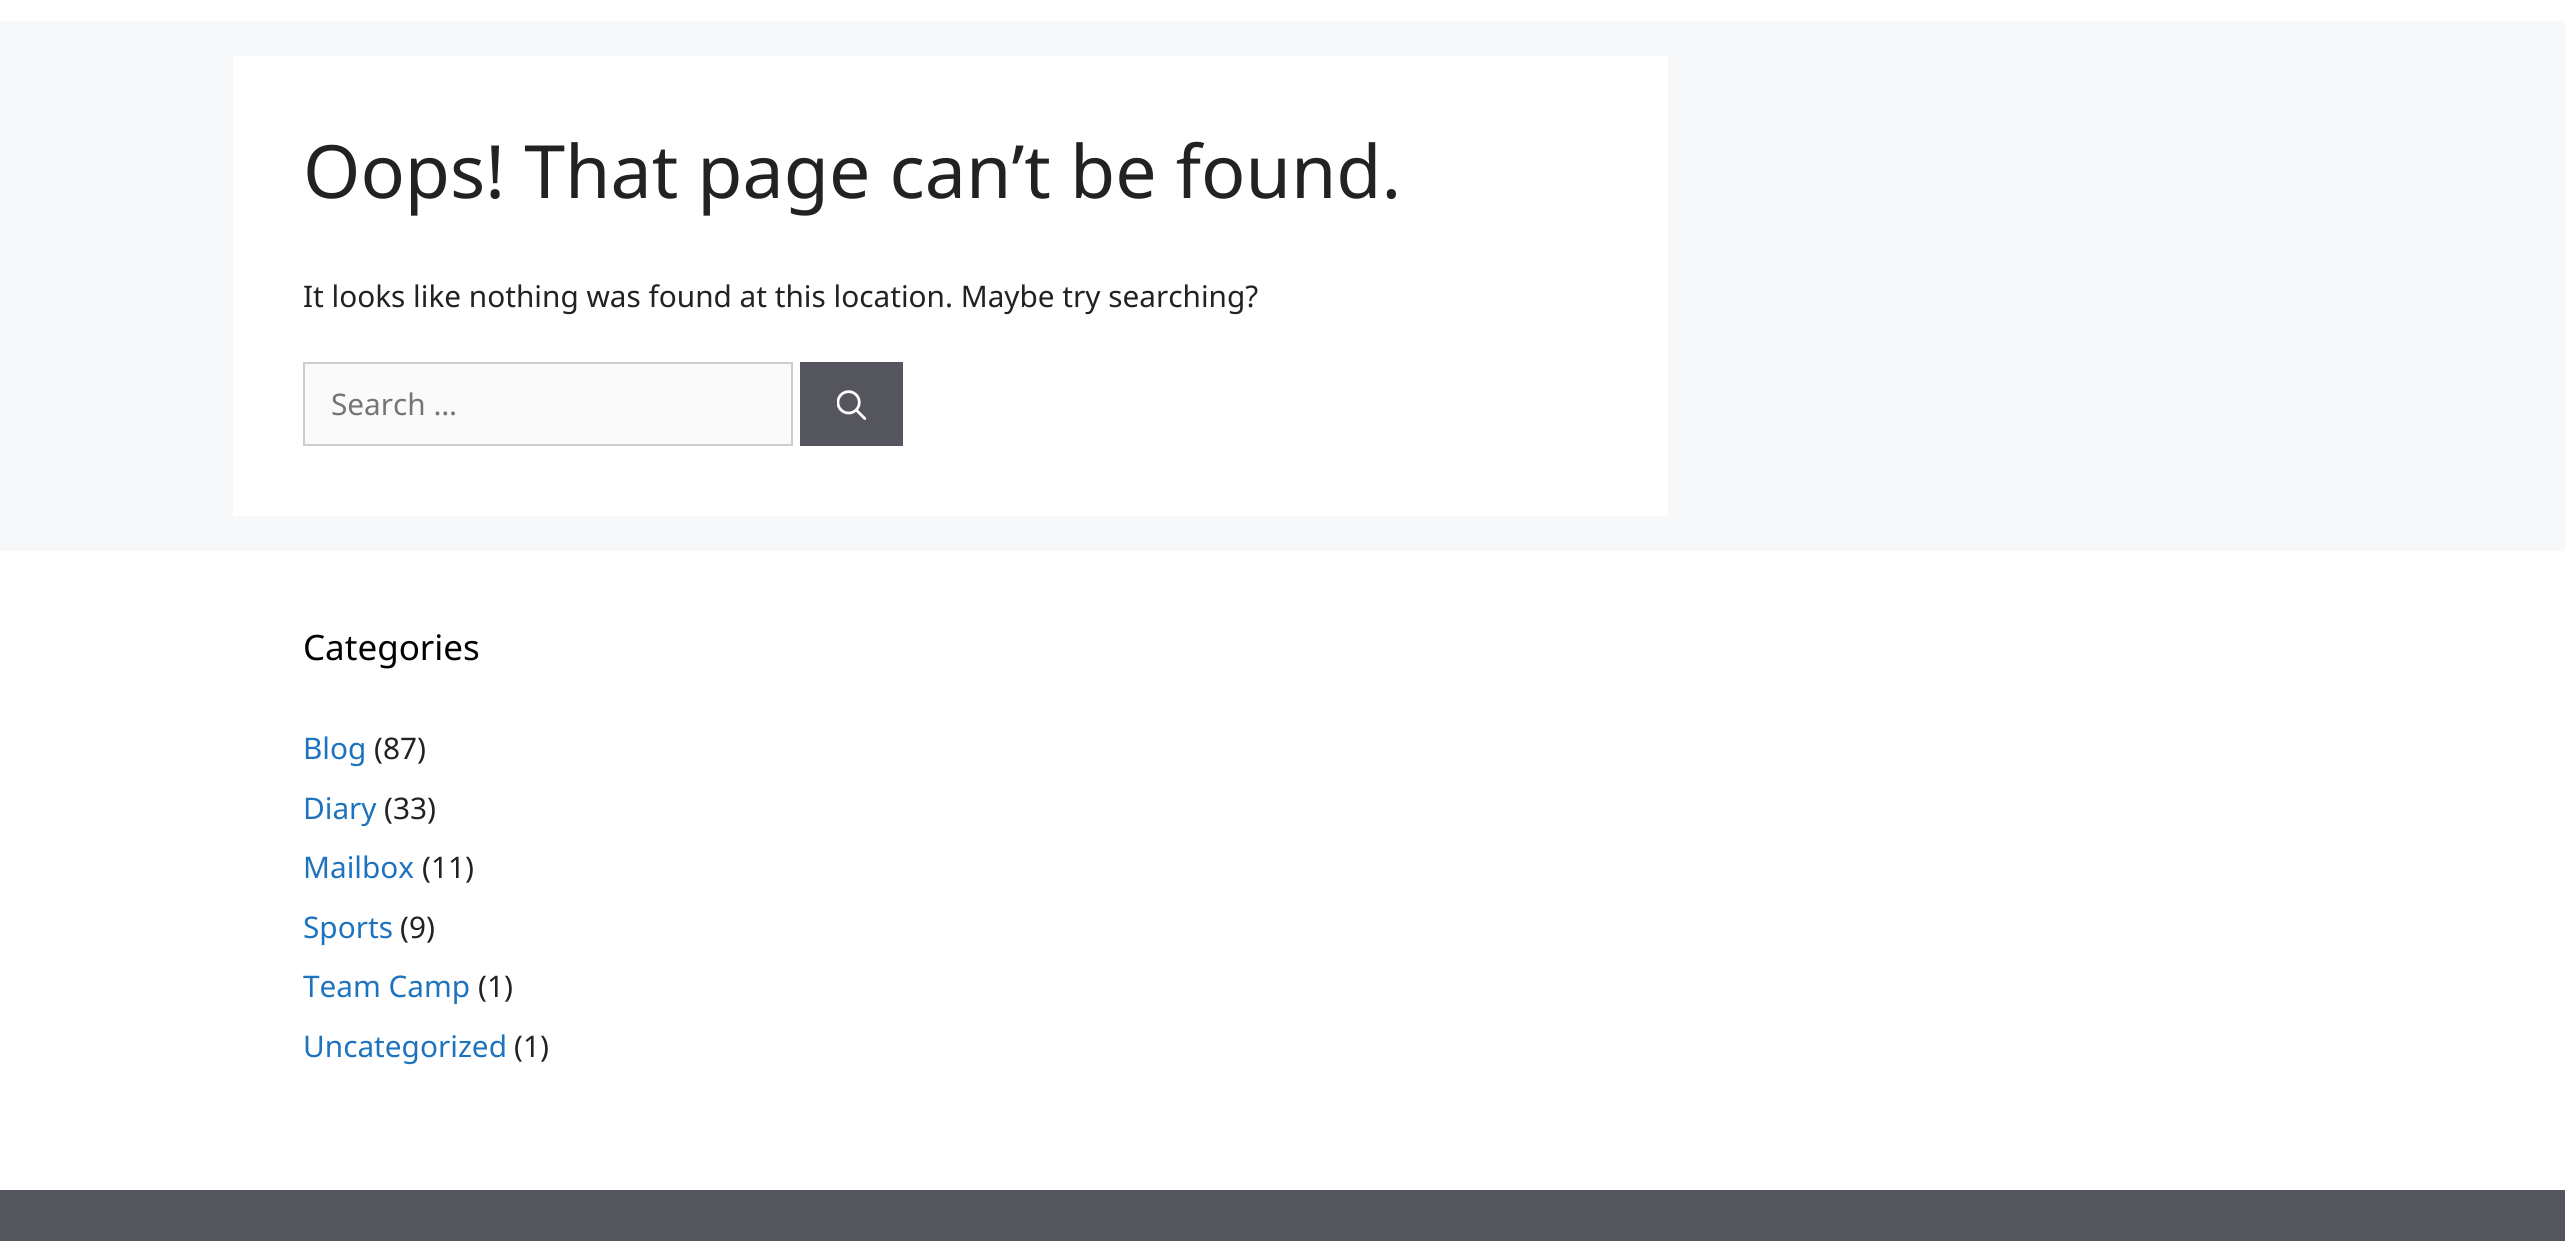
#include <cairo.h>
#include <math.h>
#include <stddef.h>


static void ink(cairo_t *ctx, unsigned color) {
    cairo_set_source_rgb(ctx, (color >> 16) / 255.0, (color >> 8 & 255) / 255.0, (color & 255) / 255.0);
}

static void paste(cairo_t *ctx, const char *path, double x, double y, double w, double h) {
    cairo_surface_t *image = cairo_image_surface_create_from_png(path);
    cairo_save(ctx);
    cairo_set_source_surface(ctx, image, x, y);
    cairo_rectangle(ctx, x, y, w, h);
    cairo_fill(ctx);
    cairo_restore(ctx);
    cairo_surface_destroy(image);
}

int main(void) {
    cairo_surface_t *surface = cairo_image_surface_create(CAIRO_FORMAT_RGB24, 2565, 1241);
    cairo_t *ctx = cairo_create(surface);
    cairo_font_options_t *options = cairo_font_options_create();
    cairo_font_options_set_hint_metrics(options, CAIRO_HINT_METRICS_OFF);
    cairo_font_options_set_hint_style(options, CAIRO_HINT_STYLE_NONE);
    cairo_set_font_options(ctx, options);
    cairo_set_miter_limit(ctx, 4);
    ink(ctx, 0xF7F8F9);
    cairo_paint(ctx);
    ink(ctx, 0xFFFFFF);
    cairo_rectangle(ctx, 0, 0, 2565, 21);
    cairo_fill(ctx);
    cairo_rectangle(ctx, 233, 56, 1435, 460);
    cairo_fill(ctx);
    cairo_select_font_face(ctx, "Noto Sans", CAIRO_FONT_SLANT_NORMAL, CAIRO_FONT_WEIGHT_NORMAL);
    cairo_set_font_size(ctx, 73.5);
    ink(ctx, 0x222222);
    cairo_move_to(ctx, 303, 198);
    cairo_show_text(ctx, "Oops! That page can’t be found.");
    cairo_set_font_size(ctx, 29.75);
    cairo_move_to(ctx, 303, 307);
    cairo_show_text(ctx, "It looks like nothing was found at this location. Maybe try searching?");
    ink(ctx, 0xFAFAFA);
    cairo_rectangle(ctx, 304, 363, 488, 82);
    cairo_fill_preserve(ctx);
    ink(ctx, 0xCCCCCC);
    cairo_stroke(ctx);
    ink(ctx, 0x757575);
    cairo_move_to(ctx, 331, 415);
    cairo_show_text(ctx, "Search …");
    ink(ctx, 0x55555E);
    cairo_rectangle(ctx, 800, 362, 103, 84);
    cairo_fill(ctx);
    paste(ctx, "media/1.png", 837, 390, 29, 30);
    ink(ctx, 0xFFFFFF);
    cairo_rectangle(ctx, 0, 551, 2565, 639);
    cairo_fill(ctx);
    cairo_set_font_size(ctx, 35);
    ink(ctx, 0x000000);
    cairo_move_to(ctx, 303, 660);
    cairo_show_text(ctx, "Categories");
    cairo_set_font_size(ctx, 29.75);
    ink(ctx, 0x1E73BE);
    cairo_move_to(ctx, 303, 759);
    cairo_show_text(ctx, "Blog");
    ink(ctx, 0x222222);
    cairo_move_to(ctx, 374, 759);
    cairo_show_text(ctx, "(87)");
    ink(ctx, 0x1E73BE);
    cairo_move_to(ctx, 303, 819);
    cairo_show_text(ctx, "Diary");
    ink(ctx, 0x222222);
    cairo_move_to(ctx, 384, 819);
    cairo_show_text(ctx, "(33)");
    ink(ctx, 0x1E73BE);
    cairo_move_to(ctx, 303, 878);
    cairo_show_text(ctx, "Mailbox");
    ink(ctx, 0x222222);
    cairo_move_to(ctx, 422, 878);
    cairo_show_text(ctx, "(11)");
    ink(ctx, 0x1E73BE);
    cairo_move_to(ctx, 303, 938);
    cairo_show_text(ctx, "Sports");
    ink(ctx, 0x222222);
    cairo_move_to(ctx, 400, 938);
    cairo_show_text(ctx, "(9)");
    ink(ctx, 0x1E73BE);
    cairo_move_to(ctx, 303, 997);
    cairo_show_text(ctx, "Team Camp");
    ink(ctx, 0x222222);
    cairo_move_to(ctx, 478, 997);
    cairo_show_text(ctx, "(1)");
    ink(ctx, 0x1E73BE);
    cairo_move_to(ctx, 303, 1057);
    cairo_show_text(ctx, "Uncategorized");
    ink(ctx, 0x222222);
    cairo_move_to(ctx, 514, 1057);
    cairo_show_text(ctx, "(1)");
    ink(ctx, 0x55555E);
    cairo_rectangle(ctx, 0, 1190, 2565, 51);
    cairo_fill(ctx);
    cairo_surface_write_to_png(surface, "image.png");
    cairo_font_options_destroy(options);
    cairo_destroy(ctx);
    cairo_surface_destroy(surface);
    return 0;
}
